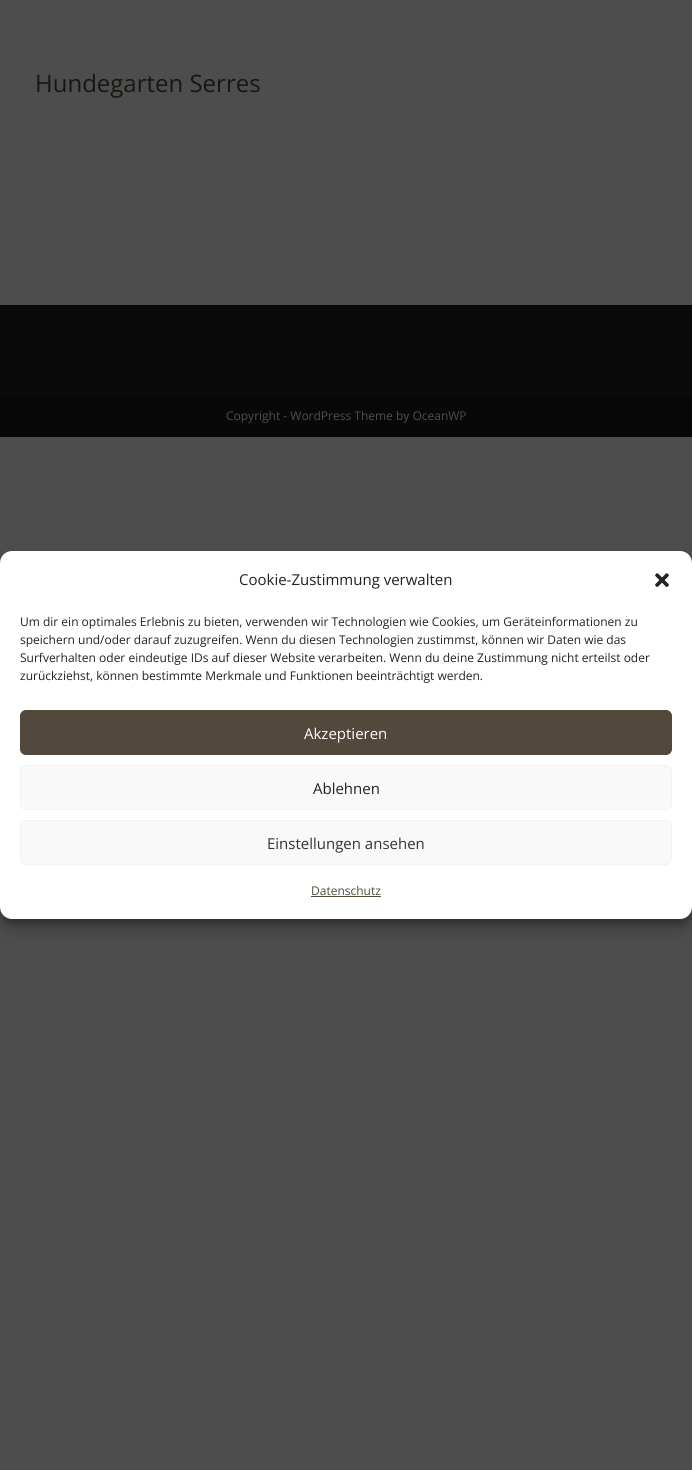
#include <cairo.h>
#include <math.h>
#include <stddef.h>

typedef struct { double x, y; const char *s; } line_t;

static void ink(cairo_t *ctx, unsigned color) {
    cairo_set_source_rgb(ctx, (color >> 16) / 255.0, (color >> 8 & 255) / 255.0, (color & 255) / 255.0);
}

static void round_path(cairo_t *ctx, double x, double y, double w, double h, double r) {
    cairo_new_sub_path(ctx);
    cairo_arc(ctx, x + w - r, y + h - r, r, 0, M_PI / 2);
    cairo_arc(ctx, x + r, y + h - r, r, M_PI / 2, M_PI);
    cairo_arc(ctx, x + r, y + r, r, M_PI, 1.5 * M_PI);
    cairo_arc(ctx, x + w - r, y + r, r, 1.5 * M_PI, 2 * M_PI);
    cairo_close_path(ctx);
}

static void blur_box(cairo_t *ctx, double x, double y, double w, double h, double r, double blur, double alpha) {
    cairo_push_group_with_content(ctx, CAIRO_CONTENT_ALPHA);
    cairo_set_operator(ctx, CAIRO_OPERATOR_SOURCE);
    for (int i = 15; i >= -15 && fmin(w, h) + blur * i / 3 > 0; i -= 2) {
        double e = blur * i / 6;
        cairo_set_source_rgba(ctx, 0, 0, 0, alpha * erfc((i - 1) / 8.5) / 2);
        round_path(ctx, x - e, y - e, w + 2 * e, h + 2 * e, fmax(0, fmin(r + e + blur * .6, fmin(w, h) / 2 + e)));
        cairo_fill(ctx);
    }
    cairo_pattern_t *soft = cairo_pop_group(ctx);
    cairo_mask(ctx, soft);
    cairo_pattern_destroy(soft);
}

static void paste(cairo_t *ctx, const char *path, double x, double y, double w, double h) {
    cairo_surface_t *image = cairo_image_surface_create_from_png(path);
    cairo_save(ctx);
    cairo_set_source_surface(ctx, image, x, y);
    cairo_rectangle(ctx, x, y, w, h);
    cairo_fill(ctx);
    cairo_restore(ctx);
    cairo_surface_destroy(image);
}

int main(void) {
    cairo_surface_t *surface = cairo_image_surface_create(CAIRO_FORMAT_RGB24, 692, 1470);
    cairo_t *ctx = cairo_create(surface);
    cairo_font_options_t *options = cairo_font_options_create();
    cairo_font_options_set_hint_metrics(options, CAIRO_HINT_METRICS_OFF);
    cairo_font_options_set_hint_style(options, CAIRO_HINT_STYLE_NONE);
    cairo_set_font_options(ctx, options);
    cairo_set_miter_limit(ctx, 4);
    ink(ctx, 0x4D4D4D);
    cairo_paint(ctx);
    cairo_select_font_face(ctx, "Open Sans", CAIRO_FONT_SLANT_NORMAL, CAIRO_FONT_WEIGHT_NORMAL);
    cairo_set_font_size(ctx, 24);
    ink(ctx, 0x191612);
    cairo_move_to(ctx, 35, 92);
    cairo_show_text(ctx, "Hundegarten Serres");
    ink(ctx, 0x0A0A0A);
    cairo_rectangle(ctx, 0, 305, 692, 90);
    cairo_fill(ctx);
    ink(ctx, 0x080808);
    cairo_rectangle(ctx, 0, 395, 692, 42);
    cairo_fill(ctx);
    cairo_set_font_size(ctx, 12);
    ink(ctx, 0x4D4D4D);
    cairo_move_to(ctx, 226, 420);
    cairo_show_text(ctx, "Copyright - WordPress Theme by OceanWP");
    ink(ctx, 0x000000);
    blur_box(ctx, 0, 557, 692, 368, 12, 3, 0.23);
    blur_box(ctx, 0, 561, 692, 368, 12, 10, 0.19);
    ink(ctx, 0xFFFFFF);
    round_path(ctx, 0, 551, 692, 368, 12);
    cairo_fill(ctx);
    cairo_set_font_size(ctx, 15);
    ink(ctx, 0x222222);
    cairo_move_to(ctx, 239, 585);
    cairo_show_text(ctx, "Cookie-Zustimmung verwalten");
    paste(ctx, "media/1.png", 655, 573, 14, 14);
    cairo_set_font_size(ctx, 12);
    {
        static const line_t items[] = {
            {20, 626, "Um dir ein optimales Erlebnis zu bieten, verwenden wir Technologien wie Cookies, um Geräteinformationen zu"},
            {20, 644, "speichern und/oder darauf zuzugreifen. Wenn du diesen Technologien zustimmst, können wir Daten wie das"},
            {20, 662, "Surfverhalten oder eindeutige IDs auf dieser Website verarbeiten. Wenn du deine Zustimmung nicht erteilst oder"},
            {20, 680, "zurückziehst, können bestimmte Merkmale und Funktionen beeinträchtigt werden."},
        };
        for (size_t i = 0; i < sizeof items / sizeof *items; i++) {
            cairo_move_to(ctx, items[i].x, items[i].y);
            cairo_show_text(ctx, items[i].s);
        }
    }
    ink(ctx, 0x52483C);
    round_path(ctx, 20.5, 710.5, 651, 44, 5.5);
    cairo_fill_preserve(ctx);
    cairo_set_line_width(ctx, 1);
    cairo_stroke(ctx);
    cairo_set_font_size(ctx, 15);
    ink(ctx, 0xFFFFFF);
    cairo_move_to(ctx, 304, 739);
    cairo_show_text(ctx, "Akzeptieren");
    ink(ctx, 0xF9F9F9);
    round_path(ctx, 20.5, 765.5, 651, 44, 5.5);
    cairo_fill_preserve(ctx);
    ink(ctx, 0xF2F2F2);
    cairo_stroke(ctx);
    ink(ctx, 0x222222);
    cairo_move_to(ctx, 313, 794);
    cairo_show_text(ctx, "Ablehnen");
    ink(ctx, 0xF9F9F9);
    round_path(ctx, 20.5, 820.5, 651, 44, 5.5);
    cairo_fill_preserve(ctx);
    ink(ctx, 0xF2F2F2);
    cairo_stroke(ctx);
    ink(ctx, 0x333333);
    cairo_move_to(ctx, 267, 849);
    cairo_show_text(ctx, "Einstellungen ansehen");
    cairo_set_font_size(ctx, 12);
    ink(ctx, 0x52483C);
    cairo_move_to(ctx, 311, 895);
    cairo_show_text(ctx, "Datenschutz");
    cairo_rectangle(ctx, 311, 896, 70, 1);
    cairo_fill(ctx);
    cairo_surface_write_to_png(surface, "image.png");
    cairo_font_options_destroy(options);
    cairo_destroy(ctx);
    cairo_surface_destroy(surface);
    return 0;
}
